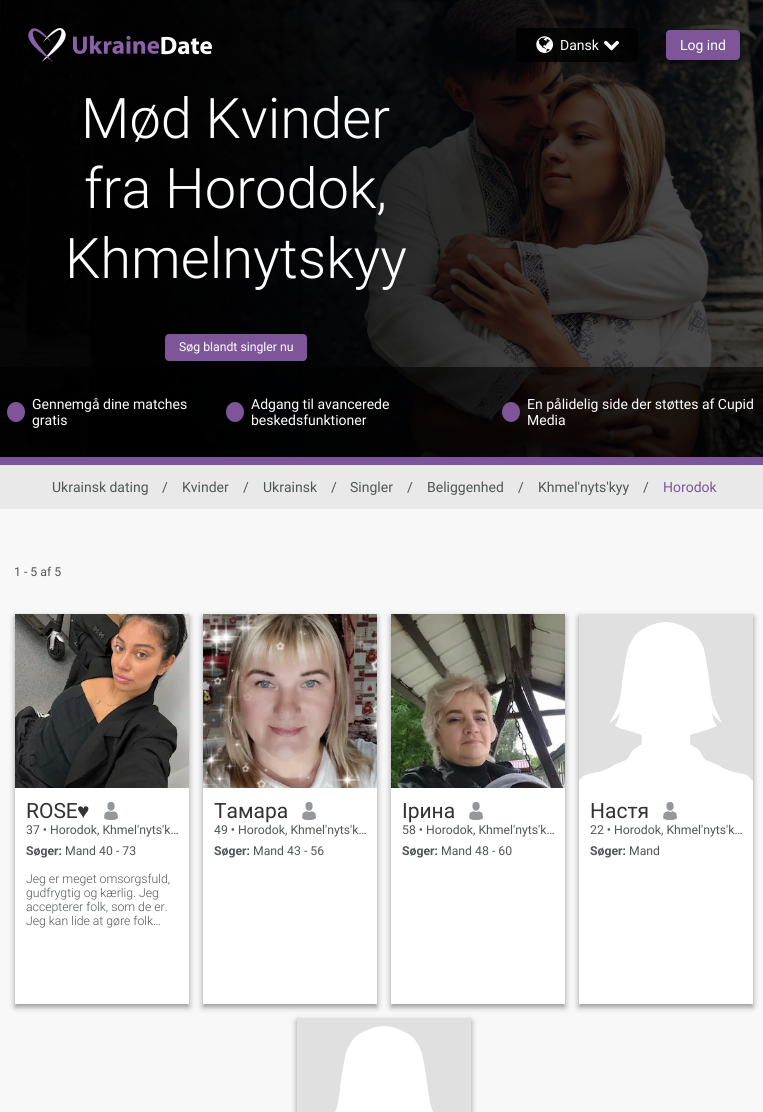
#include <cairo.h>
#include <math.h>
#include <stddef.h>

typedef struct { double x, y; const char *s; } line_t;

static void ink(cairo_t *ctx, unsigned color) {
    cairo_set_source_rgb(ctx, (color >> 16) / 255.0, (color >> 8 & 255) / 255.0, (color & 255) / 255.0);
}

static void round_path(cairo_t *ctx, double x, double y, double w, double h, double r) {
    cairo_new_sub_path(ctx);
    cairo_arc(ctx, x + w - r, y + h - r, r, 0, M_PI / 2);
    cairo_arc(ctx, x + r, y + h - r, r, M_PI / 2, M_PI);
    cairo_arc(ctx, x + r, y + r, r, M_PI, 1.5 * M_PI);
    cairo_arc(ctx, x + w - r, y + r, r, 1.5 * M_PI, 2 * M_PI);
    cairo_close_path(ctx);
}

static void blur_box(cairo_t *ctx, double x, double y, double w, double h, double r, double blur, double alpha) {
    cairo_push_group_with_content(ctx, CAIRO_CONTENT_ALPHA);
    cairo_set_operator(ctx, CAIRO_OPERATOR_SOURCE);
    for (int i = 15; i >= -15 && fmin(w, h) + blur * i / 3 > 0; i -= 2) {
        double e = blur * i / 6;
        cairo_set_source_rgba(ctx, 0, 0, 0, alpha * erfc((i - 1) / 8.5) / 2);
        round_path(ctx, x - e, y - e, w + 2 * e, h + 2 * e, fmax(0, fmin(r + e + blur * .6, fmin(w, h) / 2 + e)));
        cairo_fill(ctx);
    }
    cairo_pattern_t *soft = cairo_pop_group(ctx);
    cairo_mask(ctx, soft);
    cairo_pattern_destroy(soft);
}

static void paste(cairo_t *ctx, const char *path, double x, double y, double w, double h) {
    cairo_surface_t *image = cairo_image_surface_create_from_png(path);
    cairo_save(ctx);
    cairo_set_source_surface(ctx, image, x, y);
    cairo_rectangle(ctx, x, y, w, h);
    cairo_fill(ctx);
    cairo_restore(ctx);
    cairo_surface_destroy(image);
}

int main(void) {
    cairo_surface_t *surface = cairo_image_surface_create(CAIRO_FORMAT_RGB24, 763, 1112);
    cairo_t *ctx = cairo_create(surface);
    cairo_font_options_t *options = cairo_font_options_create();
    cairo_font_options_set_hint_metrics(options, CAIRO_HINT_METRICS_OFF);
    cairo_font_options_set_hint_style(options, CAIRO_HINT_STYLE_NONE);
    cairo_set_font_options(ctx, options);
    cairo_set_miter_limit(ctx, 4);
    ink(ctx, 0xF8F8F8);
    cairo_paint(ctx);
    paste(ctx, "media/5.png", 0, 0, 763, 457);
    paste(ctx, "media/1.png", 28, 28, 38, 34);
    paste(ctx, "media/2.png", 73, 35, 139, 20);
    cairo_set_source_rgba(ctx, 0, 0, 0, 0.8);
    round_path(ctx, 516, 28, 122, 34, 4);
    cairo_fill(ctx);
    paste(ctx, "media/3.png", 536, 36, 17, 17);
    cairo_select_font_face(ctx, "Roboto", CAIRO_FONT_SLANT_NORMAL, CAIRO_FONT_WEIGHT_NORMAL);
    cairo_set_font_size(ctx, 14);
    ink(ctx, 0xFFFFFF);
    cairo_move_to(ctx, 560, 50);
    cairo_show_text(ctx, "Dansk");
    paste(ctx, "media/4.png", 604, 40, 15, 11);
    ink(ctx, 0x000000);
    blur_box(ctx, 666, 33, 74, 30, 4, 3, 0.4);
    ink(ctx, 0x7D5598);
    round_path(ctx, 666, 30, 74, 30, 4);
    cairo_fill(ctx);
    ink(ctx, 0xFFFFFF);
    cairo_move_to(ctx, 680, 50);
    cairo_show_text(ctx, "Log ind");
    cairo_select_font_face(ctx, "Roboto Light", CAIRO_FONT_SLANT_NORMAL, CAIRO_FONT_WEIGHT_NORMAL);
    cairo_set_font_size(ctx, 56);
    {
        static const line_t items[] = {
            {81, 138, "Mød Kvinder"},
            {84, 208, "fra Horodok,"},
            {65, 278, "Khmelnytskyy"},
        };
        for (size_t i = 0; i < sizeof items / sizeof *items; i++) {
            cairo_move_to(ctx, items[i].x, items[i].y);
            cairo_show_text(ctx, items[i].s);
        }
    }
    ink(ctx, 0x7D5598);
    round_path(ctx, 165, 334, 142, 27, 4);
    cairo_fill(ctx);
    cairo_select_font_face(ctx, "Roboto", CAIRO_FONT_SLANT_NORMAL, CAIRO_FONT_WEIGHT_NORMAL);
    cairo_set_font_size(ctx, 12.25);
    ink(ctx, 0xFFFFFF);
    cairo_move_to(ctx, 179, 351);
    cairo_show_text(ctx, "Søg blandt singler nu");
    cairo_set_source_rgba(ctx, 0, 0, 0, 0.6);
    cairo_rectangle(ctx, 0, 367, 763, 90);
    cairo_fill(ctx);
    ink(ctx, 0x7D5598);
    cairo_new_path(ctx);
    cairo_move_to(ctx, 16, 402);
    cairo_curve_to(ctx, 21, 402, 25, 406.5, 25, 412);
    cairo_curve_to(ctx, 25, 417.5, 21, 422, 16, 422);
    cairo_curve_to(ctx, 11, 422, 7, 417.5, 7, 412);
    cairo_curve_to(ctx, 7, 406.5, 11, 402, 16, 402);
    cairo_close_path(ctx);
    cairo_fill(ctx);
    cairo_set_font_size(ctx, 14);
    ink(ctx, 0xFFFFFF);
    cairo_move_to(ctx, 32, 409);
    cairo_show_text(ctx, "Gennemgå dine matches");
    cairo_move_to(ctx, 32, 425);
    cairo_show_text(ctx, "gratis");
    ink(ctx, 0x7D5598);
    cairo_new_path(ctx);
    cairo_move_to(ctx, 235, 402);
    cairo_curve_to(ctx, 240, 402, 244, 406.5, 244, 412);
    cairo_curve_to(ctx, 244, 417.5, 240, 422, 235, 422);
    cairo_curve_to(ctx, 230, 422, 226, 417.5, 226, 412);
    cairo_curve_to(ctx, 226, 406.5, 230, 402, 235, 402);
    cairo_close_path(ctx);
    cairo_fill(ctx);
    ink(ctx, 0xFFFFFF);
    cairo_move_to(ctx, 251, 409);
    cairo_show_text(ctx, "Adgang til avancerede");
    cairo_move_to(ctx, 251, 425);
    cairo_show_text(ctx, "beskedsfunktioner");
    ink(ctx, 0x7D5598);
    cairo_new_path(ctx);
    cairo_move_to(ctx, 511, 402);
    cairo_curve_to(ctx, 516, 402, 520, 406.5, 520, 412);
    cairo_curve_to(ctx, 520, 417.5, 516, 422, 511, 422);
    cairo_curve_to(ctx, 506, 422, 502, 417.5, 502, 412);
    cairo_curve_to(ctx, 502, 406.5, 506, 402, 511, 402);
    cairo_close_path(ctx);
    cairo_fill(ctx);
    ink(ctx, 0xFFFFFF);
    cairo_move_to(ctx, 527, 409);
    cairo_show_text(ctx, "En pålidelig side der støttes af Cupid");
    cairo_move_to(ctx, 527, 425);
    cairo_show_text(ctx, "Media");
    ink(ctx, 0x7D5598);
    cairo_rectangle(ctx, 0, 457, 763, 8);
    cairo_fill(ctx);
    ink(ctx, 0xE9E9E9);
    cairo_rectangle(ctx, 0, 465, 763, 44);
    cairo_fill(ctx);
    ink(ctx, 0x505656);
    {
        static const line_t items[] = {
            {52, 492, "Ukrainsk dating"},
            {162, 492, "/"},
            {182, 492, "Kvinder"},
            {243, 492, "/"},
            {263, 492, "Ukrainsk"},
            {331, 492, "/"},
            {350, 492, "Singler"},
            {407, 492, "/"},
            {427, 492, "Beliggenhed"},
            {518, 492, "/"},
            {538, 492, "Khmel'nyts'kyy"},
            {643, 492, "/"},
        };
        for (size_t i = 0; i < sizeof items / sizeof *items; i++) {
            cairo_move_to(ctx, items[i].x, items[i].y);
            cairo_show_text(ctx, items[i].s);
        }
    }
    ink(ctx, 0x7D5598);
    cairo_move_to(ctx, 663, 492);
    cairo_show_text(ctx, "Horodok");
    cairo_set_font_size(ctx, 12.25);
    ink(ctx, 0x505656);
    cairo_move_to(ctx, 14, 576);
    cairo_show_text(ctx, "1 - 5 af 5");
    ink(ctx, 0x000000);
    blur_box(ctx, 15, 617, 174, 390, 0, 3, 0.4);
    ink(ctx, 0xFFFFFF);
    cairo_rectangle(ctx, 15, 788, 174, 216);
    cairo_fill(ctx);
    paste(ctx, "media/6.png", 15, 614, 174, 174);
    cairo_set_font_size(ctx, 21);
    ink(ctx, 0x323232);
    cairo_move_to(ctx, 26, 818);
    cairo_show_text(ctx, "ROSE");
    cairo_select_font_face(ctx, "Liberation Sans", CAIRO_FONT_SLANT_NORMAL, CAIRO_FONT_WEIGHT_NORMAL);
    cairo_move_to(ctx, 77, 818);
    cairo_show_text(ctx, "♥");
    paste(ctx, "media/7.png", 104, 802, 14, 18);
    cairo_select_font_face(ctx, "Roboto", CAIRO_FONT_SLANT_NORMAL, CAIRO_FONT_WEIGHT_NORMAL);
    cairo_set_font_size(ctx, 12.25);
    ink(ctx, 0x505656);
    cairo_move_to(ctx, 26, 834);
    cairo_show_text(ctx, "37 • Horodok, Khmel'nyts'k…");
    cairo_select_font_face(ctx, "Roboto", CAIRO_FONT_SLANT_NORMAL, CAIRO_FONT_WEIGHT_BOLD);
    cairo_move_to(ctx, 26, 855);
    cairo_show_text(ctx, "Søger:");
    cairo_select_font_face(ctx, "Roboto", CAIRO_FONT_SLANT_NORMAL, CAIRO_FONT_WEIGHT_NORMAL);
    cairo_move_to(ctx, 65, 855);
    cairo_show_text(ctx, "Mand 40 - 73");
    cairo_select_font_face(ctx, "Roboto Light", CAIRO_FONT_SLANT_NORMAL, CAIRO_FONT_WEIGHT_NORMAL);
    {
        static const line_t items[] = {
            {26, 883, "Jeg er meget omsorgsfuld,"},
            {26, 897, "gudfrygtig og kærlig. Jeg"},
            {26, 911, "accepterer folk, som de er."},
            {26, 925, "Jeg kan lide at gøre folk…"},
        };
        for (size_t i = 0; i < sizeof items / sizeof *items; i++) {
            cairo_move_to(ctx, items[i].x, items[i].y);
            cairo_show_text(ctx, items[i].s);
        }
    }
    ink(ctx, 0x000000);
    blur_box(ctx, 203, 617, 174, 390, 0, 3, 0.4);
    ink(ctx, 0xFFFFFF);
    cairo_rectangle(ctx, 203, 788, 174, 216);
    cairo_fill(ctx);
    paste(ctx, "media/8.png", 203, 614, 174, 174);
    cairo_select_font_face(ctx, "Roboto", CAIRO_FONT_SLANT_NORMAL, CAIRO_FONT_WEIGHT_NORMAL);
    cairo_set_font_size(ctx, 21);
    ink(ctx, 0x323232);
    cairo_move_to(ctx, 214, 818);
    cairo_show_text(ctx, "Тамара");
    paste(ctx, "media/7.png", 302, 802, 14, 18);
    cairo_set_font_size(ctx, 12.25);
    ink(ctx, 0x505656);
    cairo_move_to(ctx, 214, 834);
    cairo_show_text(ctx, "49 • Horodok, Khmel'nyts'k…");
    cairo_select_font_face(ctx, "Roboto", CAIRO_FONT_SLANT_NORMAL, CAIRO_FONT_WEIGHT_BOLD);
    cairo_move_to(ctx, 214, 855);
    cairo_show_text(ctx, "Søger:");
    cairo_select_font_face(ctx, "Roboto", CAIRO_FONT_SLANT_NORMAL, CAIRO_FONT_WEIGHT_NORMAL);
    cairo_move_to(ctx, 253, 855);
    cairo_show_text(ctx, "Mand 43 - 56");
    ink(ctx, 0x000000);
    blur_box(ctx, 391, 617, 174, 390, 0, 3, 0.4);
    ink(ctx, 0xFFFFFF);
    cairo_rectangle(ctx, 391, 788, 174, 216);
    cairo_fill(ctx);
    paste(ctx, "media/9.png", 391, 614, 174, 174);
    cairo_set_font_size(ctx, 21);
    ink(ctx, 0x323232);
    cairo_move_to(ctx, 402, 818);
    cairo_show_text(ctx, "Ірина");
    paste(ctx, "media/7.png", 469, 802, 14, 18);
    cairo_set_font_size(ctx, 12.25);
    ink(ctx, 0x505656);
    cairo_move_to(ctx, 402, 834);
    cairo_show_text(ctx, "58 • Horodok, Khmel'nyts'k…");
    cairo_select_font_face(ctx, "Roboto", CAIRO_FONT_SLANT_NORMAL, CAIRO_FONT_WEIGHT_BOLD);
    cairo_move_to(ctx, 402, 855);
    cairo_show_text(ctx, "Søger:");
    cairo_select_font_face(ctx, "Roboto", CAIRO_FONT_SLANT_NORMAL, CAIRO_FONT_WEIGHT_NORMAL);
    cairo_move_to(ctx, 441, 855);
    cairo_show_text(ctx, "Mand 48 - 60");
    ink(ctx, 0x000000);
    blur_box(ctx, 579, 617, 174, 390, 0, 3, 0.4);
    ink(ctx, 0xFFFFFF);
    cairo_rectangle(ctx, 579, 788, 174, 216);
    cairo_fill(ctx);
    ink(ctx, 0xE0E0E0);
    cairo_rectangle(ctx, 579, 614, 174, 167);
    cairo_fill(ctx);
    paste(ctx, "media/10.png", 579, 622, 174, 166);
    cairo_set_font_size(ctx, 21);
    ink(ctx, 0x323232);
    cairo_move_to(ctx, 590, 818);
    cairo_show_text(ctx, "Настя");
    paste(ctx, "media/7.png", 663, 802, 14, 18);
    cairo_set_font_size(ctx, 12.25);
    ink(ctx, 0x505656);
    cairo_move_to(ctx, 590, 834);
    cairo_show_text(ctx, "22 • Horodok, Khmel'nyts'k…");
    cairo_select_font_face(ctx, "Roboto", CAIRO_FONT_SLANT_NORMAL, CAIRO_FONT_WEIGHT_BOLD);
    cairo_move_to(ctx, 590, 855);
    cairo_show_text(ctx, "Søger:");
    cairo_select_font_face(ctx, "Roboto", CAIRO_FONT_SLANT_NORMAL, CAIRO_FONT_WEIGHT_NORMAL);
    cairo_move_to(ctx, 629, 855);
    cairo_show_text(ctx, "Mand");
    ink(ctx, 0x000000);
    blur_box(ctx, 297, 1021, 174, 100, 0, 3, 0.4);
    ink(ctx, 0xE0E0E0);
    cairo_rectangle(ctx, 297, 1018, 174, 94);
    cairo_fill(ctx);
    paste(ctx, "media/11.png", 335, 1026, 98, 86);
    cairo_surface_write_to_png(surface, "image.png");
    cairo_font_options_destroy(options);
    cairo_destroy(ctx);
    cairo_surface_destroy(surface);
    return 0;
}
